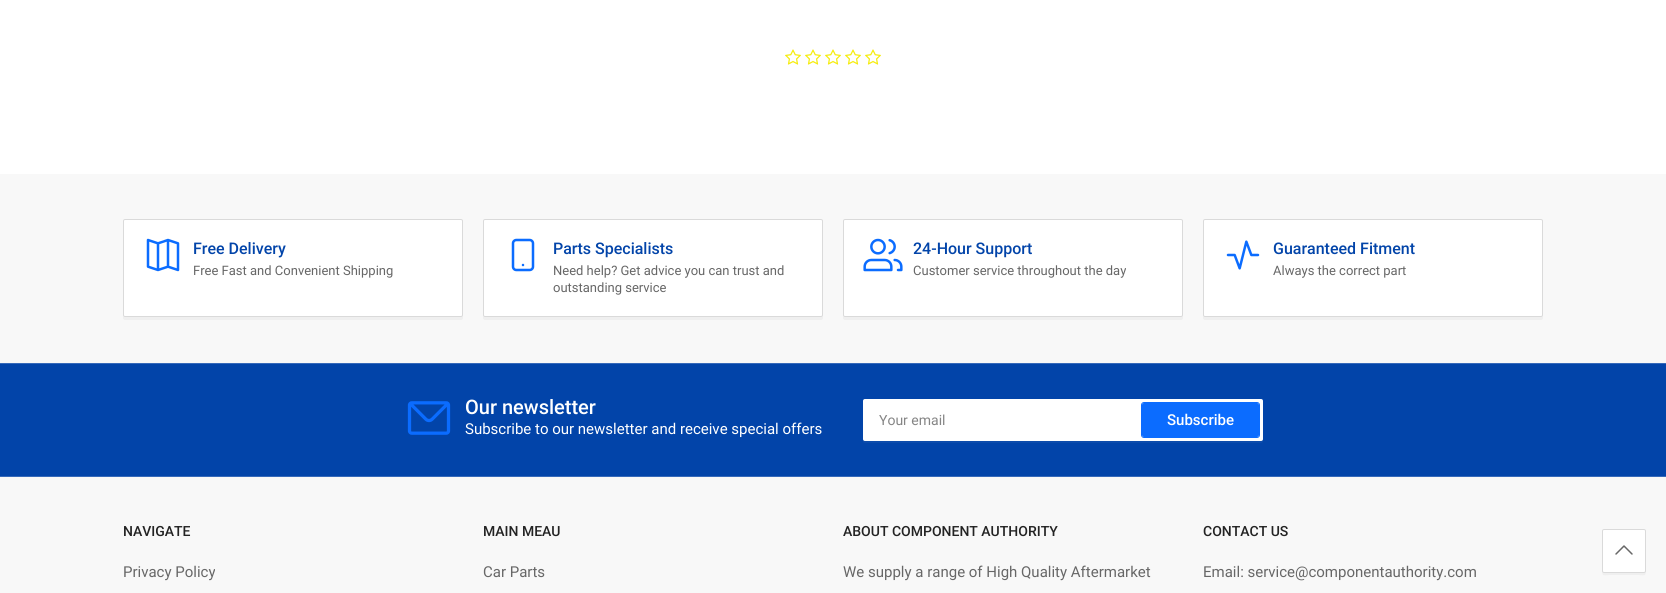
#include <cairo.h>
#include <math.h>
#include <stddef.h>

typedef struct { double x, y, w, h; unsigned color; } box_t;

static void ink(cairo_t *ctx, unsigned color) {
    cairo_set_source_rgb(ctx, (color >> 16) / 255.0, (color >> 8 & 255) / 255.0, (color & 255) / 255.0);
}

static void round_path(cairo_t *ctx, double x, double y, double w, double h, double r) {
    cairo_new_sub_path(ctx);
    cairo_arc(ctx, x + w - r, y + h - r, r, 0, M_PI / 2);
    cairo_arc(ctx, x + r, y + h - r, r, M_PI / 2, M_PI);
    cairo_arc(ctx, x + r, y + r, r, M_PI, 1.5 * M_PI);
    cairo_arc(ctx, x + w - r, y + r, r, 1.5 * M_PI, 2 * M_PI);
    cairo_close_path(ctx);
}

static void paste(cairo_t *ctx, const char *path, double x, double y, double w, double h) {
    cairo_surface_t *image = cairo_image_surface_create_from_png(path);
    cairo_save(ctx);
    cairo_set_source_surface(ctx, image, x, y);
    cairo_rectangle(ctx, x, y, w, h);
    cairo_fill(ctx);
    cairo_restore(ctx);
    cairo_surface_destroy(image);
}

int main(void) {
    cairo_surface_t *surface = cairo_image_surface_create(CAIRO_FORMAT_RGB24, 1666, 593);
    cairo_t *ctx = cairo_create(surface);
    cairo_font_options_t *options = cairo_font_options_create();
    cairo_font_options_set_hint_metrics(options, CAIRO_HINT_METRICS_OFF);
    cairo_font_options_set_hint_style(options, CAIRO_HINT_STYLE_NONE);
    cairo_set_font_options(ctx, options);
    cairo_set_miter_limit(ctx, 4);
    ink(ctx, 0xFFFFFF);
    cairo_paint(ctx);
    paste(ctx, "media/1.png", 785, 49, 16, 16);
    paste(ctx, "media/1.png", 805, 49, 16, 16);
    paste(ctx, "media/1.png", 825, 49, 16, 16);
    paste(ctx, "media/1.png", 845, 49, 16, 16);
    paste(ctx, "media/1.png", 865, 49, 16, 16);
    ink(ctx, 0xF8F8F8);
    cairo_rectangle(ctx, 0, 174, 1666, 189);
    cairo_fill(ctx);
    ink(ctx, 0xEFEFEF);
    cairo_new_path(ctx);
    cairo_move_to(ctx, 123, 315);
    cairo_line_to(ctx, 123, 318);
    cairo_curve_to(ctx, 123, 319, 124, 320, 125, 320);
    cairo_line_to(ctx, 461, 320);
    cairo_curve_to(ctx, 462, 320, 463, 319, 463, 318);
    cairo_line_to(ctx, 463, 315);
    cairo_curve_to(ctx, 463, 316, 462, 317, 461, 317);
    cairo_line_to(ctx, 125, 317);
    cairo_curve_to(ctx, 124, 317, 123, 316, 123, 315);
    cairo_close_path(ctx);
    cairo_fill(ctx);
    ink(ctx, 0xFFFFFF);
    round_path(ctx, 123.5, 219.5, 339, 97, 1.5);
    cairo_fill_preserve(ctx);
    ink(ctx, 0xDADADA);
    cairo_set_line_width(ctx, 1);
    cairo_stroke(ctx);
    paste(ctx, "media/2.png", 146, 238, 34, 34);
    cairo_select_font_face(ctx, "Roboto Medium", CAIRO_FONT_SLANT_NORMAL, CAIRO_FONT_WEIGHT_NORMAL);
    cairo_set_font_size(ctx, 16);
    ink(ctx, 0x0244A9);
    cairo_move_to(ctx, 193, 254);
    cairo_show_text(ctx, "Free Delivery");
    cairo_select_font_face(ctx, "Roboto", CAIRO_FONT_SLANT_NORMAL, CAIRO_FONT_WEIGHT_NORMAL);
    cairo_set_font_size(ctx, 13);
    ink(ctx, 0x676767);
    cairo_move_to(ctx, 193, 275);
    cairo_show_text(ctx, "Free Fast and Convenient Shipping");
    ink(ctx, 0xEFEFEF);
    cairo_new_path(ctx);
    cairo_move_to(ctx, 483, 315);
    cairo_line_to(ctx, 483, 318);
    cairo_curve_to(ctx, 483, 319, 484, 320, 485, 320);
    cairo_line_to(ctx, 821, 320);
    cairo_curve_to(ctx, 822, 320, 823, 319, 823, 318);
    cairo_line_to(ctx, 823, 315);
    cairo_curve_to(ctx, 823, 316, 822, 317, 821, 317);
    cairo_line_to(ctx, 485, 317);
    cairo_curve_to(ctx, 484, 317, 483, 316, 483, 315);
    cairo_close_path(ctx);
    cairo_fill(ctx);
    ink(ctx, 0xFFFFFF);
    round_path(ctx, 483.5, 219.5, 339, 97, 1.5);
    cairo_fill_preserve(ctx);
    ink(ctx, 0xDADADA);
    cairo_stroke(ctx);
    paste(ctx, "media/3.png", 511, 238, 24, 34);
    cairo_select_font_face(ctx, "Roboto Medium", CAIRO_FONT_SLANT_NORMAL, CAIRO_FONT_WEIGHT_NORMAL);
    cairo_set_font_size(ctx, 16);
    ink(ctx, 0x0244A9);
    cairo_move_to(ctx, 553, 254);
    cairo_show_text(ctx, "Parts Specialists");
    cairo_select_font_face(ctx, "Roboto", CAIRO_FONT_SLANT_NORMAL, CAIRO_FONT_WEIGHT_NORMAL);
    cairo_set_font_size(ctx, 13);
    ink(ctx, 0x676767);
    cairo_move_to(ctx, 553, 275);
    cairo_show_text(ctx, "Need help? Get advice you can trust and");
    cairo_move_to(ctx, 553, 292);
    cairo_show_text(ctx, "outstanding service");
    ink(ctx, 0xEFEFEF);
    cairo_new_path(ctx);
    cairo_move_to(ctx, 843, 315);
    cairo_line_to(ctx, 843, 318);
    cairo_curve_to(ctx, 843, 319, 844, 320, 845, 320);
    cairo_line_to(ctx, 1181, 320);
    cairo_curve_to(ctx, 1182, 320, 1183, 319, 1183, 318);
    cairo_line_to(ctx, 1183, 315);
    cairo_curve_to(ctx, 1183, 316, 1182, 317, 1181, 317);
    cairo_line_to(ctx, 845, 317);
    cairo_curve_to(ctx, 844, 317, 843, 316, 843, 315);
    cairo_close_path(ctx);
    cairo_fill(ctx);
    ink(ctx, 0xFFFFFF);
    round_path(ctx, 843.5, 219.5, 339, 97, 1.5);
    cairo_fill_preserve(ctx);
    ink(ctx, 0xDADADA);
    cairo_stroke(ctx);
    paste(ctx, "media/4.png", 863, 238, 40, 34);
    cairo_select_font_face(ctx, "Roboto Medium", CAIRO_FONT_SLANT_NORMAL, CAIRO_FONT_WEIGHT_NORMAL);
    cairo_set_font_size(ctx, 16);
    ink(ctx, 0x0244A9);
    cairo_move_to(ctx, 913, 254);
    cairo_show_text(ctx, "24-Hour Support");
    cairo_select_font_face(ctx, "Roboto", CAIRO_FONT_SLANT_NORMAL, CAIRO_FONT_WEIGHT_NORMAL);
    cairo_set_font_size(ctx, 13);
    ink(ctx, 0x676767);
    cairo_move_to(ctx, 913, 275);
    cairo_show_text(ctx, "Customer service throughout the day");
    ink(ctx, 0xEFEFEF);
    cairo_new_path(ctx);
    cairo_move_to(ctx, 1203, 315);
    cairo_line_to(ctx, 1203, 318);
    cairo_curve_to(ctx, 1203, 319, 1204, 320, 1205, 320);
    cairo_line_to(ctx, 1541, 320);
    cairo_curve_to(ctx, 1542, 320, 1543, 319, 1543, 318);
    cairo_line_to(ctx, 1543, 315);
    cairo_curve_to(ctx, 1543, 316, 1542, 317, 1541, 317);
    cairo_line_to(ctx, 1205, 317);
    cairo_curve_to(ctx, 1204, 317, 1203, 316, 1203, 315);
    cairo_close_path(ctx);
    cairo_fill(ctx);
    ink(ctx, 0xFFFFFF);
    round_path(ctx, 1203.5, 219.5, 339, 97, 1.5);
    cairo_fill_preserve(ctx);
    ink(ctx, 0xDADADA);
    cairo_stroke(ctx);
    paste(ctx, "media/5.png", 1226, 240, 34, 30);
    cairo_select_font_face(ctx, "Roboto Medium", CAIRO_FONT_SLANT_NORMAL, CAIRO_FONT_WEIGHT_NORMAL);
    cairo_set_font_size(ctx, 16);
    ink(ctx, 0x0244A9);
    cairo_move_to(ctx, 1273, 254);
    cairo_show_text(ctx, "Guaranteed Fitment");
    cairo_select_font_face(ctx, "Roboto", CAIRO_FONT_SLANT_NORMAL, CAIRO_FONT_WEIGHT_NORMAL);
    cairo_set_font_size(ctx, 13);
    ink(ctx, 0x676767);
    cairo_move_to(ctx, 1273, 275);
    cairo_show_text(ctx, "Always the correct part");
    {
        static const box_t items[] = {
            {0, 364, 1666, 112, 0x0244A9},
            {0, 363, 1666, 1, 0x3569BA},
            {0, 476, 1666, 1, 0x3569BA},
        };
        for (size_t i = 0; i < sizeof items / sizeof *items; i++) {
            ink(ctx, items[i].color);
            cairo_rectangle(ctx, items[i].x, items[i].y, items[i].w, items[i].h);
            cairo_fill(ctx);
        }
    }
    paste(ctx, "media/6.png", 407, 401, 44, 34);
    cairo_select_font_face(ctx, "Roboto Medium", CAIRO_FONT_SLANT_NORMAL, CAIRO_FONT_WEIGHT_NORMAL);
    cairo_set_font_size(ctx, 20);
    ink(ctx, 0xFFFFFF);
    cairo_move_to(ctx, 465, 414);
    cairo_show_text(ctx, "Our newsletter");
    cairo_select_font_face(ctx, "Roboto", CAIRO_FONT_SLANT_NORMAL, CAIRO_FONT_WEIGHT_NORMAL);
    cairo_set_font_size(ctx, 15);
    cairo_move_to(ctx, 465, 434);
    cairo_show_text(ctx, "Subscribe to our newsletter and receive special offers");
    ink(ctx, 0x0D4CAB);
    cairo_new_path(ctx);
    cairo_move_to(ctx, 863, 439);
    cairo_line_to(ctx, 863, 441);
    cairo_curve_to(ctx, 863, 442, 864, 443, 865, 443);
    cairo_line_to(ctx, 1261, 443);
    cairo_curve_to(ctx, 1262, 443, 1263, 442, 1263, 441);
    cairo_line_to(ctx, 1263, 439);
    cairo_curve_to(ctx, 1263, 440, 1262, 441, 1261, 441);
    cairo_line_to(ctx, 865, 441);
    cairo_curve_to(ctx, 864, 441, 863, 440, 863, 439);
    cairo_close_path(ctx);
    cairo_fill(ctx);
    ink(ctx, 0xFFFFFF);
    round_path(ctx, 863, 399, 400, 42, 2);
    cairo_fill(ctx);
    round_path(ctx, 863.5, 399.5, 399, 41, 1.5);
    cairo_set_source_rgba(ctx, 1, 1, 1, 0.2);
    cairo_stroke(ctx);
    cairo_set_font_size(ctx, 14);
    ink(ctx, 0x858585);
    cairo_move_to(ctx, 879, 425);
    cairo_show_text(ctx, "Your email");
    round_path(ctx, 1141.5, 402.5, 118, 35, 2.5);
    ink(ctx, 0x0B6CFF);
    cairo_stroke(ctx);
    round_path(ctx, 1142, 403, 117, 34, 2);
    cairo_fill(ctx);
    cairo_select_font_face(ctx, "Roboto Medium", CAIRO_FONT_SLANT_NORMAL, CAIRO_FONT_WEIGHT_NORMAL);
    cairo_set_font_size(ctx, 15);
    ink(ctx, 0xFFFFFF);
    cairo_move_to(ctx, 1167, 425);
    cairo_show_text(ctx, "Subscribe");
    ink(ctx, 0xF8F8F8);
    cairo_rectangle(ctx, 0, 477, 1666, 116);
    cairo_fill(ctx);
    cairo_set_font_size(ctx, 14);
    ink(ctx, 0x232323);
    cairo_move_to(ctx, 123, 536);
    cairo_show_text(ctx, "NAVIGATE");
    cairo_select_font_face(ctx, "Roboto", CAIRO_FONT_SLANT_NORMAL, CAIRO_FONT_WEIGHT_NORMAL);
    cairo_set_font_size(ctx, 15);
    ink(ctx, 0x676767);
    cairo_move_to(ctx, 123, 577);
    cairo_show_text(ctx, "Privacy Policy");
    cairo_select_font_face(ctx, "Roboto Medium", CAIRO_FONT_SLANT_NORMAL, CAIRO_FONT_WEIGHT_NORMAL);
    cairo_set_font_size(ctx, 14);
    ink(ctx, 0x232323);
    cairo_move_to(ctx, 483, 536);
    cairo_show_text(ctx, "MAIN MEAU");
    cairo_select_font_face(ctx, "Roboto", CAIRO_FONT_SLANT_NORMAL, CAIRO_FONT_WEIGHT_NORMAL);
    cairo_set_font_size(ctx, 15);
    ink(ctx, 0x676767);
    cairo_move_to(ctx, 483, 577);
    cairo_show_text(ctx, "Car Parts");
    cairo_select_font_face(ctx, "Roboto Medium", CAIRO_FONT_SLANT_NORMAL, CAIRO_FONT_WEIGHT_NORMAL);
    cairo_set_font_size(ctx, 14);
    ink(ctx, 0x232323);
    cairo_move_to(ctx, 843, 536);
    cairo_show_text(ctx, "ABOUT COMPONENT AUTHORITY");
    cairo_select_font_face(ctx, "Roboto", CAIRO_FONT_SLANT_NORMAL, CAIRO_FONT_WEIGHT_NORMAL);
    cairo_set_font_size(ctx, 15);
    ink(ctx, 0x676767);
    cairo_move_to(ctx, 843, 577);
    cairo_show_text(ctx, "We supply a range of High Quality Aftermarket");
    cairo_select_font_face(ctx, "Roboto Medium", CAIRO_FONT_SLANT_NORMAL, CAIRO_FONT_WEIGHT_NORMAL);
    cairo_set_font_size(ctx, 14);
    ink(ctx, 0x232323);
    cairo_move_to(ctx, 1203, 536);
    cairo_show_text(ctx, "CONTACT US");
    cairo_select_font_face(ctx, "Roboto", CAIRO_FONT_SLANT_NORMAL, CAIRO_FONT_WEIGHT_NORMAL);
    cairo_set_font_size(ctx, 15);
    ink(ctx, 0x676767);
    cairo_move_to(ctx, 1203, 577);
    cairo_show_text(ctx, "Email: service@componentauthority.com");
    ink(ctx, 0xEFEFEF);
    cairo_new_path(ctx);
    cairo_move_to(ctx, 1602, 571);
    cairo_curve_to(ctx, 1602, 577, 1605, 575, 1611, 575);
    cairo_line_to(ctx, 1637, 575);
    cairo_curve_to(ctx, 1643, 575, 1646, 577, 1646, 571);
    cairo_curve_to(ctx, 1646, 572, 1645, 573, 1644, 573);
    cairo_line_to(ctx, 1604, 573);
    cairo_curve_to(ctx, 1603, 573, 1602, 572, 1602, 571);
    cairo_close_path(ctx);
    cairo_fill(ctx);
    ink(ctx, 0xFFFFFF);
    round_path(ctx, 1602.5, 529.5, 43, 43, 1.5);
    cairo_fill_preserve(ctx);
    ink(ctx, 0xDADADA);
    cairo_stroke(ctx);
    paste(ctx, "media/7.png", 1615, 545, 18, 10);
    cairo_surface_write_to_png(surface, "image.png");
    cairo_font_options_destroy(options);
    cairo_destroy(ctx);
    cairo_surface_destroy(surface);
    return 0;
}
